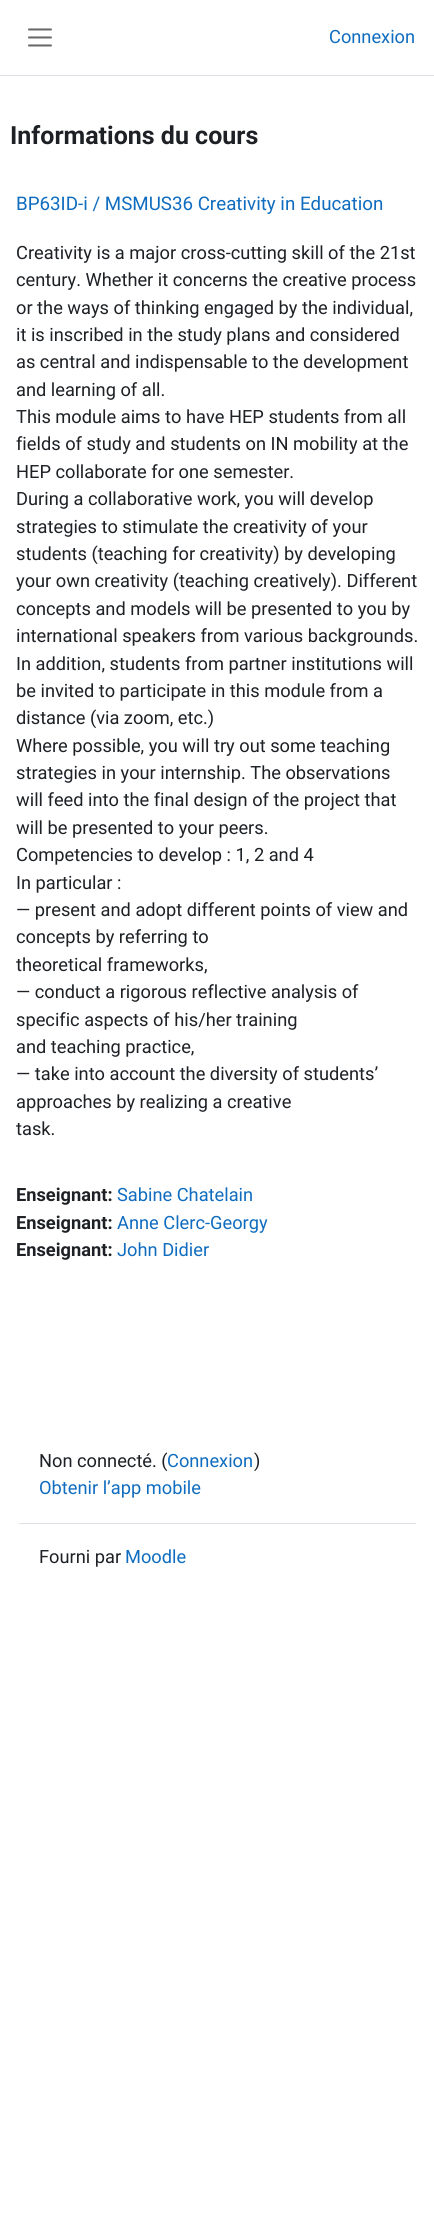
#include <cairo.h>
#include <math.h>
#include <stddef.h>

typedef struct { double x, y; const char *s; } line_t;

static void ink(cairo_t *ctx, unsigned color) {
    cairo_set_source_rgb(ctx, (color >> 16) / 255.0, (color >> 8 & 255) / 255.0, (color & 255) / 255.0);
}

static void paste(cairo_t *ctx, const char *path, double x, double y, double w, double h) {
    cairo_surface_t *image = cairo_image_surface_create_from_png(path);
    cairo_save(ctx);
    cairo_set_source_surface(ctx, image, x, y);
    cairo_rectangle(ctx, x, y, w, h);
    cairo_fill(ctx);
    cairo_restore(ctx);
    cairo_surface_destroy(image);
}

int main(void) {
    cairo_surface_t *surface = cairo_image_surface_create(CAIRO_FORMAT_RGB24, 434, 2239);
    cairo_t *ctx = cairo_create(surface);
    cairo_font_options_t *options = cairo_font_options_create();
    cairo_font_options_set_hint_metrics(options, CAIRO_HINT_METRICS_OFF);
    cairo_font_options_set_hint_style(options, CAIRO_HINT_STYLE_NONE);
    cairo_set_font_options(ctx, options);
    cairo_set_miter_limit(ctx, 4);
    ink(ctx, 0xFFFFFF);
    cairo_paint(ctx);
    ink(ctx, 0xDEE2E6);
    cairo_rectangle(ctx, 0, 75, 434, 1);
    cairo_fill(ctx);
    paste(ctx, "media/1.png", 28, 28, 24, 19);
    cairo_select_font_face(ctx, "Roboto", CAIRO_FONT_SLANT_NORMAL, CAIRO_FONT_WEIGHT_NORMAL);
    cairo_set_font_size(ctx, 18.25);
    ink(ctx, 0x0F6CBF);
    cairo_move_to(ctx, 329, 43);
    cairo_show_text(ctx, "Connexion");
    cairo_select_font_face(ctx, "Roboto", CAIRO_FONT_SLANT_NORMAL, CAIRO_FONT_WEIGHT_BOLD);
    cairo_set_font_size(ctx, 25);
    ink(ctx, 0x1D2125);
    cairo_move_to(ctx, 10, 144);
    cairo_show_text(ctx, "Informations du cours");
    cairo_select_font_face(ctx, "Roboto", CAIRO_FONT_SLANT_NORMAL, CAIRO_FONT_WEIGHT_NORMAL);
    cairo_set_font_size(ctx, 18.75);
    ink(ctx, 0x0F6CBF);
    cairo_move_to(ctx, 16, 210);
    cairo_show_text(ctx, "BP63ID-i / MSMUS36 Creativity in Education");
    cairo_set_font_size(ctx, 18.25);
    ink(ctx, 0x1D2125);
    {
        static const line_t items[] = {
            {16, 259, "Creativity is a major cross-cutting skill of the 21st"},
            {16, 286, "century. Whether it concerns the creative process"},
            {16, 314, "or the ways of thinking engaged by the individual,"},
            {16, 341, "it is inscribed in the study plans and considered"},
            {16, 368, "as central and indispensable to the development"},
            {16, 396, "and learning of all."},
            {16, 423, "This module aims to have HEP students from all"},
            {16, 450, "fields of study and students on IN mobility at the"},
            {16, 478, "HEP collaborate for one semester."},
            {16, 505, "During a collaborative work, you will develop"},
            {16, 533, "strategies to stimulate the creativity of your"},
            {16, 560, "students (teaching for creativity) by developing"},
            {16, 587, "your own creativity (teaching creatively). Different"},
            {16, 615, "concepts and models will be presented to you by"},
            {16, 642, "international speakers from various backgrounds."},
            {16, 670, "In addition, students from partner institutions will"},
            {16, 697, "be invited to participate in this module from a"},
            {16, 724, "distance (via zoom, etc.)"},
            {16, 752, "Where possible, you will try out some teaching"},
            {16, 779, "strategies in your internship. The observations"},
            {16, 806, "will feed into the final design of the project that"},
            {16, 834, "will be presented to your peers."},
            {16, 861, "Competencies to develop : 1, 2 and 4"},
            {16, 889, "In particular :"},
            {16, 916, "— present and adopt different points of view and"},
            {16, 943, "concepts by referring to"},
            {16, 971, "theoretical frameworks,"},
            {16, 998, "— conduct a rigorous reflective analysis of"},
            {16, 1026, "specific aspects of his/her training"},
            {16, 1053, "and teaching practice,"},
            {16, 1080, "— take into account the diversity of students’"},
            {16, 1108, "approaches by realizing a creative"},
            {16, 1135, "task."},
        };
        for (size_t i = 0; i < sizeof items / sizeof *items; i++) {
            cairo_move_to(ctx, items[i].x, items[i].y);
            cairo_show_text(ctx, items[i].s);
        }
    }
    cairo_select_font_face(ctx, "Roboto", CAIRO_FONT_SLANT_NORMAL, CAIRO_FONT_WEIGHT_BOLD);
    cairo_move_to(ctx, 16, 1201);
    cairo_show_text(ctx, "Enseignant:");
    cairo_select_font_face(ctx, "Roboto", CAIRO_FONT_SLANT_NORMAL, CAIRO_FONT_WEIGHT_NORMAL);
    ink(ctx, 0x0F6CBF);
    cairo_move_to(ctx, 117, 1201);
    cairo_show_text(ctx, "Sabine Chatelain");
    cairo_select_font_face(ctx, "Roboto", CAIRO_FONT_SLANT_NORMAL, CAIRO_FONT_WEIGHT_BOLD);
    ink(ctx, 0x1D2125);
    cairo_move_to(ctx, 16, 1229);
    cairo_show_text(ctx, "Enseignant:");
    cairo_select_font_face(ctx, "Roboto", CAIRO_FONT_SLANT_NORMAL, CAIRO_FONT_WEIGHT_NORMAL);
    ink(ctx, 0x0F6CBF);
    cairo_move_to(ctx, 117, 1229);
    cairo_show_text(ctx, "Anne Clerc-Georgy");
    cairo_select_font_face(ctx, "Roboto", CAIRO_FONT_SLANT_NORMAL, CAIRO_FONT_WEIGHT_BOLD);
    ink(ctx, 0x1D2125);
    cairo_move_to(ctx, 16, 1256);
    cairo_show_text(ctx, "Enseignant:");
    cairo_select_font_face(ctx, "Roboto", CAIRO_FONT_SLANT_NORMAL, CAIRO_FONT_WEIGHT_NORMAL);
    ink(ctx, 0x0F6CBF);
    cairo_move_to(ctx, 117, 1256);
    cairo_show_text(ctx, "John Didier");
    ink(ctx, 0xDEE2E6);
    cairo_rectangle(ctx, 19, 1523, 397, 1);
    cairo_fill(ctx);
    ink(ctx, 0x1D2125);
    cairo_move_to(ctx, 39, 1467);
    cairo_show_text(ctx, "Non connecté. (");
    ink(ctx, 0x0F6CBF);
    cairo_move_to(ctx, 167, 1467);
    cairo_show_text(ctx, "Connexion");
    ink(ctx, 0x1D2125);
    cairo_move_to(ctx, 254, 1467);
    cairo_show_text(ctx, ")");
    ink(ctx, 0x0F6CBF);
    cairo_move_to(ctx, 39, 1494);
    cairo_show_text(ctx, "Obtenir l’app mobile");
    ink(ctx, 0x1D2125);
    cairo_move_to(ctx, 39, 1563);
    cairo_show_text(ctx, "Fourni par");
    ink(ctx, 0x0F6CBF);
    cairo_move_to(ctx, 125, 1563);
    cairo_show_text(ctx, "Moodle");
    cairo_surface_write_to_png(surface, "image.png");
    cairo_font_options_destroy(options);
    cairo_destroy(ctx);
    cairo_surface_destroy(surface);
    return 0;
}
